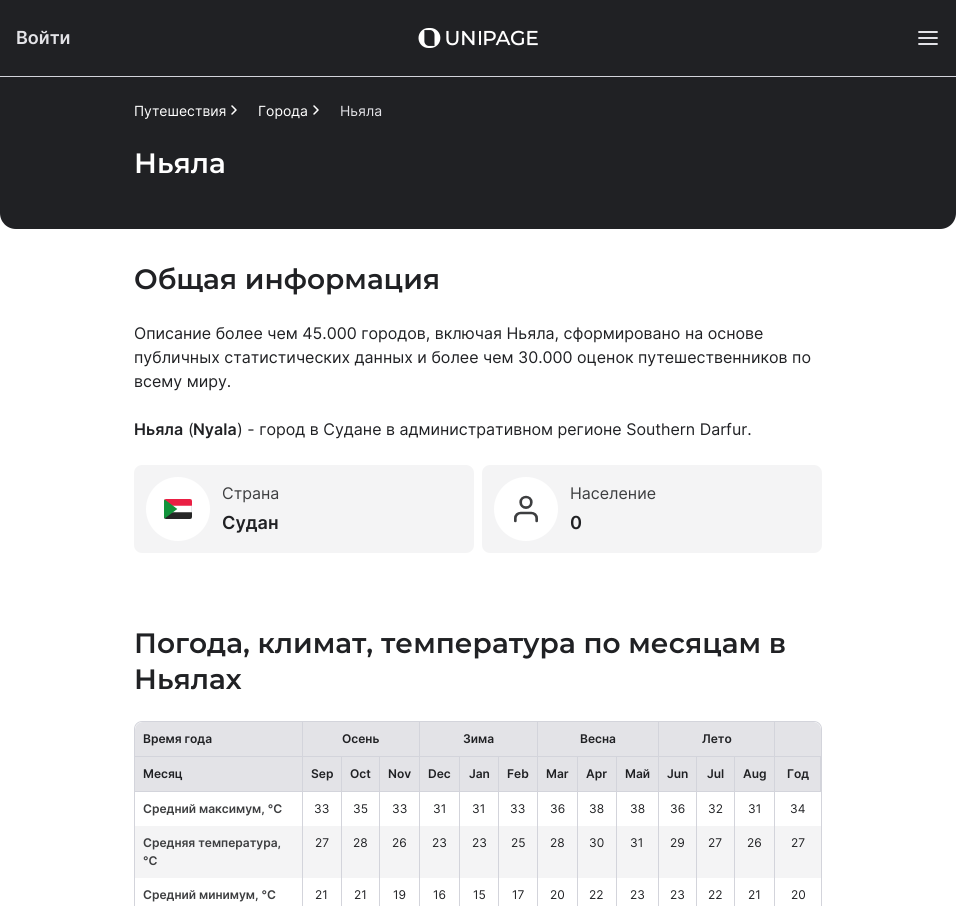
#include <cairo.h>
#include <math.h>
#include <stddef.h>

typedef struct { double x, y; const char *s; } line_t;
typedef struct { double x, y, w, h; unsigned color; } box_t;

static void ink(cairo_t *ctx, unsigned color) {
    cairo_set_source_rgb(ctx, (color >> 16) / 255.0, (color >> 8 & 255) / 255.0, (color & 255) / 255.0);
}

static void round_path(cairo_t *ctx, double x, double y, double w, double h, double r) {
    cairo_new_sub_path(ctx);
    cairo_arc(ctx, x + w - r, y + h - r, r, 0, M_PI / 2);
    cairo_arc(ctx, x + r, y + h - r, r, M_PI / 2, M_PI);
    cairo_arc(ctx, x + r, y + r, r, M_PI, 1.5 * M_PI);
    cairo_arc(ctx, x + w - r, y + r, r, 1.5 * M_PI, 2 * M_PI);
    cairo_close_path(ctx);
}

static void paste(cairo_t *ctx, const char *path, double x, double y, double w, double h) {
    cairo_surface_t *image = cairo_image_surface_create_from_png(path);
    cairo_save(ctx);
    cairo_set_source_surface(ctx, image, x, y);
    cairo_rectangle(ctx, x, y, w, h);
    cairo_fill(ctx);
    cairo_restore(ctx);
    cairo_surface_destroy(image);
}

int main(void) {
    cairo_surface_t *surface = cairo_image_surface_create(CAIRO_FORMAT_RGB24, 956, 906);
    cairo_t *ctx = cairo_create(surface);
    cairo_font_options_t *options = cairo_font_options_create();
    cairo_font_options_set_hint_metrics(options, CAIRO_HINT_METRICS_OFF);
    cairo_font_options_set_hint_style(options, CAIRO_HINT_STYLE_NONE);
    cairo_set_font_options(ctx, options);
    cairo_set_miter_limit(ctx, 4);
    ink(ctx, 0xFFFFFF);
    cairo_paint(ctx);
    ink(ctx, 0x202124);
    cairo_rectangle(ctx, 0, 0, 956, 76);
    cairo_fill(ctx);
    ink(ctx, 0xD3D4DB);
    cairo_rectangle(ctx, 0, 76, 956, 1);
    cairo_fill(ctx);
    cairo_select_font_face(ctx, "Inter SemiBold", CAIRO_FONT_SLANT_NORMAL, CAIRO_FONT_WEIGHT_NORMAL);
    cairo_set_font_size(ctx, 18);
    ink(ctx, 0xE3E3E7);
    cairo_move_to(ctx, 16, 44);
    cairo_show_text(ctx, "Войти");
    paste(ctx, "media/1.png", 418, 28, 120, 20);
    paste(ctx, "media/2.png", 918, 31, 20, 14);
    ink(ctx, 0x202124);
    cairo_new_path(ctx);
    cairo_move_to(ctx, 0, 77);
    cairo_line_to(ctx, 956, 77);
    cairo_line_to(ctx, 956, 213);
    cairo_curve_to(ctx, 956, 222, 949, 229, 940, 229);
    cairo_line_to(ctx, 16, 229);
    cairo_curve_to(ctx, 7, 229, 0, 222, 0, 213);
    cairo_close_path(ctx);
    cairo_fill(ctx);
    cairo_select_font_face(ctx, "Inter", CAIRO_FONT_SLANT_NORMAL, CAIRO_FONT_WEIGHT_NORMAL);
    cairo_set_font_size(ctx, 14);
    ink(ctx, 0xFFFFFF);
    cairo_move_to(ctx, 134, 116);
    cairo_show_text(ctx, "Путешествия");
    cairo_new_path(ctx);
    cairo_move_to(ctx, 232, 114);
    cairo_line_to(ctx, 236, 110);
    cairo_line_to(ctx, 232, 106);
    cairo_set_line_width(ctx, 1.5);
    cairo_set_line_cap(ctx, CAIRO_LINE_CAP_ROUND);
    cairo_set_line_join(ctx, CAIRO_LINE_JOIN_ROUND);
    cairo_stroke(ctx);
    cairo_move_to(ctx, 258, 116);
    cairo_show_text(ctx, "Города");
    cairo_new_path(ctx);
    cairo_move_to(ctx, 314, 114);
    cairo_line_to(ctx, 318, 110);
    cairo_line_to(ctx, 314, 106);
    cairo_stroke(ctx);
    ink(ctx, 0xE3E3E7);
    cairo_move_to(ctx, 340, 116);
    cairo_show_text(ctx, "Ньяла");
    cairo_select_font_face(ctx, "Montserrat SemiBold", CAIRO_FONT_SLANT_NORMAL, CAIRO_FONT_WEIGHT_NORMAL);
    cairo_set_font_size(ctx, 28);
    ink(ctx, 0xFFFFFF);
    cairo_move_to(ctx, 134, 173);
    cairo_show_text(ctx, "Ньяла");
    ink(ctx, 0x202124);
    cairo_move_to(ctx, 134, 289);
    cairo_show_text(ctx, "Общая информация");
    cairo_select_font_face(ctx, "Inter", CAIRO_FONT_SLANT_NORMAL, CAIRO_FONT_WEIGHT_NORMAL);
    cairo_set_font_size(ctx, 16);
    {
        static const line_t items[] = {
            {134, 339, "Описание более чем 45.000 городов, включая Ньяла, сформировано на основе"},
            {134, 363, "публичных статистических данных и более чем 30.000 оценок путешественников по"},
            {134, 387, "всему миру."},
        };
        for (size_t i = 0; i < sizeof items / sizeof *items; i++) {
            cairo_move_to(ctx, items[i].x, items[i].y);
            cairo_show_text(ctx, items[i].s);
        }
    }
    cairo_select_font_face(ctx, "Inter SemiBold", CAIRO_FONT_SLANT_NORMAL, CAIRO_FONT_WEIGHT_NORMAL);
    cairo_move_to(ctx, 134, 435);
    cairo_show_text(ctx, "Ньяла");
    cairo_select_font_face(ctx, "Inter", CAIRO_FONT_SLANT_NORMAL, CAIRO_FONT_WEIGHT_NORMAL);
    cairo_move_to(ctx, 188, 435);
    cairo_show_text(ctx, "(");
    cairo_select_font_face(ctx, "Inter SemiBold", CAIRO_FONT_SLANT_NORMAL, CAIRO_FONT_WEIGHT_NORMAL);
    cairo_move_to(ctx, 193, 435);
    cairo_show_text(ctx, "Nyala");
    cairo_select_font_face(ctx, "Inter", CAIRO_FONT_SLANT_NORMAL, CAIRO_FONT_WEIGHT_NORMAL);
    cairo_move_to(ctx, 237, 435);
    cairo_show_text(ctx, ") - город в Судане в административном регионе Southern Darfur.");
    ink(ctx, 0xF4F4F5);
    round_path(ctx, 134, 465, 340, 88, 8);
    cairo_fill(ctx);
    ink(ctx, 0xFFFFFF);
    cairo_arc(ctx, 178, 509, 32, 0, 2 * M_PI);
    cairo_fill(ctx);
    paste(ctx, "media/3.png", 164, 499, 28, 20);
    ink(ctx, 0x3D3E40);
    cairo_move_to(ctx, 222, 499);
    cairo_show_text(ctx, "Страна");
    cairo_select_font_face(ctx, "Inter SemiBold", CAIRO_FONT_SLANT_NORMAL, CAIRO_FONT_WEIGHT_NORMAL);
    cairo_set_font_size(ctx, 18);
    ink(ctx, 0x202124);
    cairo_move_to(ctx, 222, 529);
    cairo_show_text(ctx, "Судан");
    ink(ctx, 0xF4F4F5);
    round_path(ctx, 482, 465, 340, 88, 8);
    cairo_fill(ctx);
    ink(ctx, 0xFFFFFF);
    cairo_arc(ctx, 526, 509, 32, 0, 2 * M_PI);
    cairo_fill(ctx);
    paste(ctx, "media/4.png", 514, 495, 24, 28);
    cairo_select_font_face(ctx, "Inter", CAIRO_FONT_SLANT_NORMAL, CAIRO_FONT_WEIGHT_NORMAL);
    cairo_set_font_size(ctx, 16);
    ink(ctx, 0x3D3E40);
    cairo_move_to(ctx, 570, 499);
    cairo_show_text(ctx, "Население");
    cairo_select_font_face(ctx, "Inter SemiBold", CAIRO_FONT_SLANT_NORMAL, CAIRO_FONT_WEIGHT_NORMAL);
    cairo_set_font_size(ctx, 18);
    ink(ctx, 0x202124);
    cairo_move_to(ctx, 570, 529);
    cairo_show_text(ctx, "0");
    cairo_select_font_face(ctx, "Montserrat SemiBold", CAIRO_FONT_SLANT_NORMAL, CAIRO_FONT_WEIGHT_NORMAL);
    cairo_set_font_size(ctx, 28);
    cairo_move_to(ctx, 134, 653);
    cairo_show_text(ctx, "Погода, климат, температура по месяцам в");
    cairo_move_to(ctx, 134, 689);
    cairo_show_text(ctx, "Ньялах");
    round_path(ctx, 134.5, 721.5, 687, 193, 7.5);
    ink(ctx, 0xD3D4DB);
    cairo_set_line_width(ctx, 1);
    cairo_set_line_cap(ctx, CAIRO_LINE_CAP_BUTT);
    cairo_set_line_join(ctx, CAIRO_LINE_JOIN_MITER);
    cairo_stroke(ctx);
    cairo_save(ctx);
    round_path(ctx, 135, 722, 686, 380, 7);
    cairo_clip(ctx);
    ink(ctx, 0xE3E3E7);
    cairo_new_path(ctx);
    cairo_move_to(ctx, 143, 722);
    cairo_line_to(ctx, 302, 722);
    cairo_line_to(ctx, 302, 756);
    cairo_line_to(ctx, 135, 756);
    cairo_line_to(ctx, 135, 730);
    cairo_curve_to(ctx, 135, 725.5, 138.5, 722, 143, 722);
    cairo_close_path(ctx);
    cairo_fill(ctx);
    cairo_restore(ctx);
    cairo_rectangle(ctx, 302, 722, 1, 104);
    cairo_fill(ctx);
    cairo_rectangle(ctx, 135, 756, 168, 1);
    cairo_fill(ctx);
    cairo_select_font_face(ctx, "Inter SemiBold", CAIRO_FONT_SLANT_NORMAL, CAIRO_FONT_WEIGHT_NORMAL);
    cairo_set_font_size(ctx, 12);
    ink(ctx, 0x202124);
    cairo_move_to(ctx, 143, 743);
    cairo_show_text(ctx, "Время года");
    {
        static const box_t items[] = {
            {303, 722, 116, 34, 0xE3E3E7},
            {419, 722, 1, 104, 0xD3D4DB},
            {303, 756, 117, 1, 0xD3D4DB},
        };
        for (size_t i = 0; i < sizeof items / sizeof *items; i++) {
            ink(ctx, items[i].color);
            cairo_rectangle(ctx, items[i].x, items[i].y, items[i].w, items[i].h);
            cairo_fill(ctx);
        }
    }
    ink(ctx, 0x202124);
    cairo_move_to(ctx, 342, 743);
    cairo_show_text(ctx, "Осень");
    {
        static const box_t items[] = {
            {420, 722, 117, 34, 0xE3E3E7},
            {537, 722, 1, 104, 0xD3D4DB},
            {420, 756, 118, 1, 0xD3D4DB},
        };
        for (size_t i = 0; i < sizeof items / sizeof *items; i++) {
            ink(ctx, items[i].color);
            cairo_rectangle(ctx, items[i].x, items[i].y, items[i].w, items[i].h);
            cairo_fill(ctx);
        }
    }
    ink(ctx, 0x202124);
    cairo_move_to(ctx, 463, 743);
    cairo_show_text(ctx, "Зима");
    {
        static const box_t items[] = {
            {538, 722, 120, 34, 0xE3E3E7},
            {658, 722, 1, 104, 0xD3D4DB},
            {538, 756, 121, 1, 0xD3D4DB},
        };
        for (size_t i = 0; i < sizeof items / sizeof *items; i++) {
            ink(ctx, items[i].color);
            cairo_rectangle(ctx, items[i].x, items[i].y, items[i].w, items[i].h);
            cairo_fill(ctx);
        }
    }
    ink(ctx, 0x202124);
    cairo_move_to(ctx, 580, 743);
    cairo_show_text(ctx, "Весна");
    {
        static const box_t items[] = {
            {659, 722, 115, 34, 0xE3E3E7},
            {774, 722, 1, 104, 0xD3D4DB},
            {659, 756, 116, 1, 0xD3D4DB},
        };
        for (size_t i = 0; i < sizeof items / sizeof *items; i++) {
            ink(ctx, items[i].color);
            cairo_rectangle(ctx, items[i].x, items[i].y, items[i].w, items[i].h);
            cairo_fill(ctx);
        }
    }
    ink(ctx, 0x202124);
    cairo_move_to(ctx, 702, 743);
    cairo_show_text(ctx, "Лето");
    cairo_save(ctx);
    round_path(ctx, 135, 722, 686, 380, 7);
    cairo_clip(ctx);
    ink(ctx, 0xE3E3E7);
    cairo_new_path(ctx);
    cairo_move_to(ctx, 775, 722);
    cairo_line_to(ctx, 813, 722);
    cairo_curve_to(ctx, 817.5, 722, 821, 725.5, 821, 730);
    cairo_line_to(ctx, 821, 757);
    cairo_line_to(ctx, 775, 757);
    cairo_close_path(ctx);
    cairo_fill(ctx);
    cairo_restore(ctx);
    {
        static const box_t items[] = {
            {775, 756, 46, 1, 0xD3D4DB},
            {135, 757, 167, 34, 0xE3E3E7},
            {135, 791, 168, 1, 0xD3D4DB},
        };
        for (size_t i = 0; i < sizeof items / sizeof *items; i++) {
            ink(ctx, items[i].color);
            cairo_rectangle(ctx, items[i].x, items[i].y, items[i].w, items[i].h);
            cairo_fill(ctx);
        }
    }
    ink(ctx, 0x202124);
    cairo_move_to(ctx, 143, 778);
    cairo_show_text(ctx, "Месяц");
    {
        static const box_t items[] = {
            {303, 757, 38, 34, 0xE3E3E7},
            {341, 757, 1, 69, 0xD3D4DB},
            {303, 791, 39, 1, 0xD3D4DB},
        };
        for (size_t i = 0; i < sizeof items / sizeof *items; i++) {
            ink(ctx, items[i].color);
            cairo_rectangle(ctx, items[i].x, items[i].y, items[i].w, items[i].h);
            cairo_fill(ctx);
        }
    }
    ink(ctx, 0x202124);
    cairo_move_to(ctx, 311, 778);
    cairo_show_text(ctx, "Sep");
    {
        static const box_t items[] = {
            {342, 757, 37, 34, 0xE3E3E7},
            {379, 757, 1, 69, 0xD3D4DB},
            {342, 791, 78, 1, 0xD3D4DB},
        };
        for (size_t i = 0; i < sizeof items / sizeof *items; i++) {
            ink(ctx, items[i].color);
            cairo_rectangle(ctx, items[i].x, items[i].y, items[i].w, items[i].h);
            cairo_fill(ctx);
        }
    }
    ink(ctx, 0x202124);
    cairo_move_to(ctx, 350, 778);
    cairo_show_text(ctx, "Oct");
    ink(ctx, 0xE3E3E7);
    cairo_rectangle(ctx, 380, 757, 39, 34);
    cairo_fill(ctx);
    ink(ctx, 0x202124);
    cairo_move_to(ctx, 388, 778);
    cairo_show_text(ctx, "Nov");
    {
        static const box_t items[] = {
            {420, 757, 39, 34, 0xE3E3E7},
            {459, 757, 1, 69, 0xD3D4DB},
            {420, 791, 40, 1, 0xD3D4DB},
        };
        for (size_t i = 0; i < sizeof items / sizeof *items; i++) {
            ink(ctx, items[i].color);
            cairo_rectangle(ctx, items[i].x, items[i].y, items[i].w, items[i].h);
            cairo_fill(ctx);
        }
    }
    ink(ctx, 0x202124);
    cairo_move_to(ctx, 428, 778);
    cairo_show_text(ctx, "Dec");
    {
        static const box_t items[] = {
            {460, 757, 38, 34, 0xE3E3E7},
            {498, 757, 1, 69, 0xD3D4DB},
            {460, 791, 78, 1, 0xD3D4DB},
        };
        for (size_t i = 0; i < sizeof items / sizeof *items; i++) {
            ink(ctx, items[i].color);
            cairo_rectangle(ctx, items[i].x, items[i].y, items[i].w, items[i].h);
            cairo_fill(ctx);
        }
    }
    ink(ctx, 0x202124);
    cairo_move_to(ctx, 469, 778);
    cairo_show_text(ctx, "Jan");
    ink(ctx, 0xE3E3E7);
    cairo_rectangle(ctx, 499, 757, 38, 34);
    cairo_fill(ctx);
    ink(ctx, 0x202124);
    cairo_move_to(ctx, 507, 778);
    cairo_show_text(ctx, "Feb");
    {
        static const box_t items[] = {
            {538, 757, 39, 34, 0xE3E3E7},
            {577, 757, 1, 69, 0xD3D4DB},
            {538, 791, 40, 1, 0xD3D4DB},
        };
        for (size_t i = 0; i < sizeof items / sizeof *items; i++) {
            ink(ctx, items[i].color);
            cairo_rectangle(ctx, items[i].x, items[i].y, items[i].w, items[i].h);
            cairo_fill(ctx);
        }
    }
    ink(ctx, 0x202124);
    cairo_move_to(ctx, 546, 778);
    cairo_show_text(ctx, "Mar");
    {
        static const box_t items[] = {
            {578, 757, 38, 34, 0xE3E3E7},
            {616, 757, 1, 69, 0xD3D4DB},
            {578, 791, 81, 1, 0xD3D4DB},
        };
        for (size_t i = 0; i < sizeof items / sizeof *items; i++) {
            ink(ctx, items[i].color);
            cairo_rectangle(ctx, items[i].x, items[i].y, items[i].w, items[i].h);
            cairo_fill(ctx);
        }
    }
    ink(ctx, 0x202124);
    cairo_move_to(ctx, 586, 778);
    cairo_show_text(ctx, "Apr");
    ink(ctx, 0xE3E3E7);
    cairo_rectangle(ctx, 617, 757, 41, 34);
    cairo_fill(ctx);
    ink(ctx, 0x202124);
    cairo_move_to(ctx, 625, 778);
    cairo_show_text(ctx, "Май");
    {
        static const box_t items[] = {
            {659, 757, 37, 34, 0xE3E3E7},
            {696, 757, 1, 69, 0xD3D4DB},
            {659, 791, 38, 1, 0xD3D4DB},
        };
        for (size_t i = 0; i < sizeof items / sizeof *items; i++) {
            ink(ctx, items[i].color);
            cairo_rectangle(ctx, items[i].x, items[i].y, items[i].w, items[i].h);
            cairo_fill(ctx);
        }
    }
    ink(ctx, 0x202124);
    cairo_move_to(ctx, 667, 778);
    cairo_show_text(ctx, "Jun");
    {
        static const box_t items[] = {
            {697, 757, 37, 34, 0xE3E3E7},
            {734, 757, 1, 69, 0xD3D4DB},
            {697, 791, 78, 1, 0xD3D4DB},
        };
        for (size_t i = 0; i < sizeof items / sizeof *items; i++) {
            ink(ctx, items[i].color);
            cairo_rectangle(ctx, items[i].x, items[i].y, items[i].w, items[i].h);
            cairo_fill(ctx);
        }
    }
    ink(ctx, 0x202124);
    cairo_move_to(ctx, 707, 778);
    cairo_show_text(ctx, "Jul");
    ink(ctx, 0xE3E3E7);
    cairo_rectangle(ctx, 735, 757, 39, 34);
    cairo_fill(ctx);
    ink(ctx, 0x202124);
    cairo_move_to(ctx, 743, 778);
    cairo_show_text(ctx, "Aug");
    {
        static const box_t items[] = {
            {775, 757, 45, 34, 0xE3E3E7},
            {820, 757, 1, 35, 0xD3D4DB},
            {775, 791, 46, 1, 0xD3D4DB},
        };
        for (size_t i = 0; i < sizeof items / sizeof *items; i++) {
            ink(ctx, items[i].color);
            cairo_rectangle(ctx, items[i].x, items[i].y, items[i].w, items[i].h);
            cairo_fill(ctx);
        }
    }
    ink(ctx, 0x202124);
    cairo_move_to(ctx, 787, 778);
    cairo_show_text(ctx, "Год");
    ink(ctx, 0x3D3E40);
    cairo_move_to(ctx, 143, 813);
    cairo_show_text(ctx, "Средний максимум, °C");
    cairo_select_font_face(ctx, "Inter", CAIRO_FONT_SLANT_NORMAL, CAIRO_FONT_WEIGHT_NORMAL);
    ink(ctx, 0x202124);
    {
        static const line_t items[] = {
            {314, 813, "33"},
            {353, 813, "35"},
            {392, 813, "33"},
            {433, 813, "31"},
            {472, 813, "31"},
            {510, 813, "33"},
            {550, 813, "36"},
            {589, 813, "38"},
            {630, 813, "38"},
            {670, 813, "36"},
            {708, 813, "32"},
            {748, 813, "31"},
            {790, 813, "34"},
        };
        for (size_t i = 0; i < sizeof items / sizeof *items; i++) {
            cairo_move_to(ctx, items[i].x, items[i].y);
            cairo_show_text(ctx, items[i].s);
        }
    }
    ink(ctx, 0xF4F4F5);
    cairo_rectangle(ctx, 135, 826, 686, 52);
    cairo_fill(ctx);
    ink(ctx, 0xD3D4DB);
    cairo_rectangle(ctx, 302, 826, 1, 80);
    cairo_fill(ctx);
    cairo_select_font_face(ctx, "Inter SemiBold", CAIRO_FONT_SLANT_NORMAL, CAIRO_FONT_WEIGHT_NORMAL);
    ink(ctx, 0x3D3E40);
    cairo_move_to(ctx, 143, 847);
    cairo_show_text(ctx, "Средняя температура,");
    cairo_move_to(ctx, 143, 865);
    cairo_show_text(ctx, "°C");
    ink(ctx, 0xD3D4DB);
    cairo_rectangle(ctx, 341, 826, 1, 80);
    cairo_fill(ctx);
    cairo_select_font_face(ctx, "Inter", CAIRO_FONT_SLANT_NORMAL, CAIRO_FONT_WEIGHT_NORMAL);
    ink(ctx, 0x202124);
    cairo_move_to(ctx, 315, 847);
    cairo_show_text(ctx, "27");
    ink(ctx, 0xD3D4DB);
    cairo_rectangle(ctx, 379, 826, 1, 80);
    cairo_fill(ctx);
    ink(ctx, 0x202124);
    cairo_move_to(ctx, 353, 847);
    cairo_show_text(ctx, "28");
    ink(ctx, 0xD3D4DB);
    cairo_rectangle(ctx, 419, 826, 1, 80);
    cairo_fill(ctx);
    ink(ctx, 0x202124);
    cairo_move_to(ctx, 392, 847);
    cairo_show_text(ctx, "26");
    ink(ctx, 0xD3D4DB);
    cairo_rectangle(ctx, 459, 826, 1, 80);
    cairo_fill(ctx);
    ink(ctx, 0x202124);
    cairo_move_to(ctx, 432, 847);
    cairo_show_text(ctx, "23");
    ink(ctx, 0xD3D4DB);
    cairo_rectangle(ctx, 498, 826, 1, 80);
    cairo_fill(ctx);
    ink(ctx, 0x202124);
    cairo_move_to(ctx, 472, 847);
    cairo_show_text(ctx, "23");
    ink(ctx, 0xD3D4DB);
    cairo_rectangle(ctx, 537, 826, 1, 80);
    cairo_fill(ctx);
    ink(ctx, 0x202124);
    cairo_move_to(ctx, 511, 847);
    cairo_show_text(ctx, "25");
    ink(ctx, 0xD3D4DB);
    cairo_rectangle(ctx, 577, 826, 1, 80);
    cairo_fill(ctx);
    ink(ctx, 0x202124);
    cairo_move_to(ctx, 550, 847);
    cairo_show_text(ctx, "28");
    ink(ctx, 0xD3D4DB);
    cairo_rectangle(ctx, 616, 826, 1, 80);
    cairo_fill(ctx);
    ink(ctx, 0x202124);
    cairo_move_to(ctx, 589, 847);
    cairo_show_text(ctx, "30");
    ink(ctx, 0xD3D4DB);
    cairo_rectangle(ctx, 658, 826, 1, 80);
    cairo_fill(ctx);
    ink(ctx, 0x202124);
    cairo_move_to(ctx, 630, 847);
    cairo_show_text(ctx, "31");
    ink(ctx, 0xD3D4DB);
    cairo_rectangle(ctx, 696, 826, 1, 80);
    cairo_fill(ctx);
    ink(ctx, 0x202124);
    cairo_move_to(ctx, 670, 847);
    cairo_show_text(ctx, "29");
    ink(ctx, 0xD3D4DB);
    cairo_rectangle(ctx, 734, 826, 1, 80);
    cairo_fill(ctx);
    ink(ctx, 0x202124);
    cairo_move_to(ctx, 708, 847);
    cairo_show_text(ctx, "27");
    ink(ctx, 0xD3D4DB);
    cairo_rectangle(ctx, 774, 826, 1, 80);
    cairo_fill(ctx);
    ink(ctx, 0x202124);
    cairo_move_to(ctx, 747, 847);
    cairo_show_text(ctx, "26");
    cairo_move_to(ctx, 791, 847);
    cairo_show_text(ctx, "27");
    cairo_select_font_face(ctx, "Inter SemiBold", CAIRO_FONT_SLANT_NORMAL, CAIRO_FONT_WEIGHT_NORMAL);
    ink(ctx, 0x3D3E40);
    cairo_move_to(ctx, 143, 899);
    cairo_show_text(ctx, "Средний минимум, °C");
    cairo_select_font_face(ctx, "Inter", CAIRO_FONT_SLANT_NORMAL, CAIRO_FONT_WEIGHT_NORMAL);
    ink(ctx, 0x202124);
    {
        static const line_t items[] = {
            {315, 899, "21"},
            {354, 899, "21"},
            {393, 899, "19"},
            {433, 899, "16"},
            {473, 899, "15"},
            {512, 899, "17"},
            {550, 899, "20"},
            {589, 899, "22"},
            {630, 899, "23"},
            {670, 899, "23"},
            {708, 899, "22"},
            {748, 899, "21"},
            {791, 899, "20"},
        };
        for (size_t i = 0; i < sizeof items / sizeof *items; i++) {
            cairo_move_to(ctx, items[i].x, items[i].y);
            cairo_show_text(ctx, items[i].s);
        }
    }
    cairo_surface_write_to_png(surface, "image.png");
    cairo_font_options_destroy(options);
    cairo_destroy(ctx);
    cairo_surface_destroy(surface);
    return 0;
}
